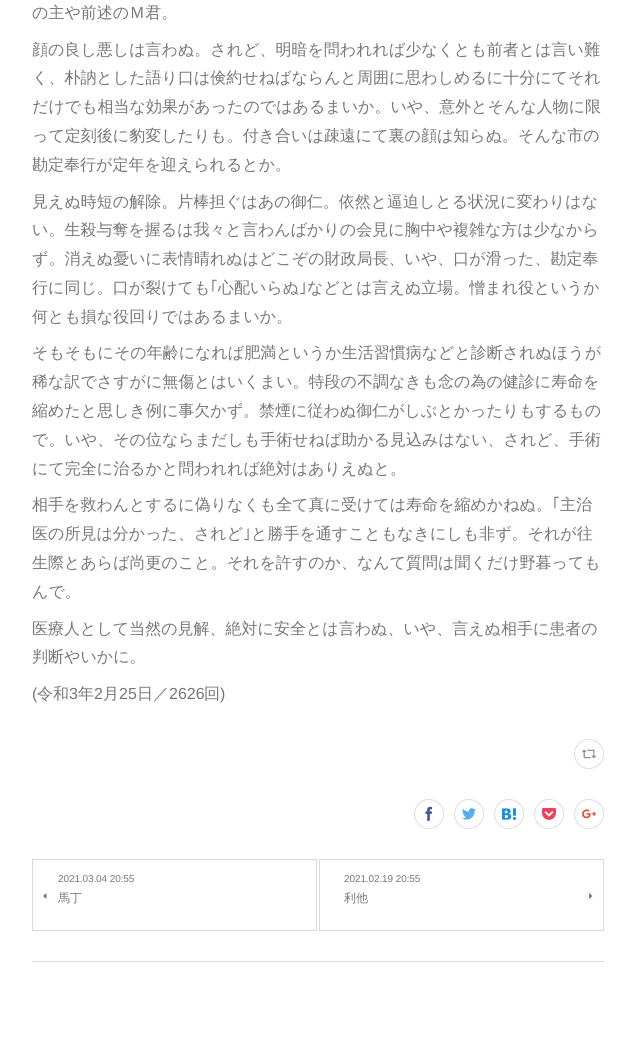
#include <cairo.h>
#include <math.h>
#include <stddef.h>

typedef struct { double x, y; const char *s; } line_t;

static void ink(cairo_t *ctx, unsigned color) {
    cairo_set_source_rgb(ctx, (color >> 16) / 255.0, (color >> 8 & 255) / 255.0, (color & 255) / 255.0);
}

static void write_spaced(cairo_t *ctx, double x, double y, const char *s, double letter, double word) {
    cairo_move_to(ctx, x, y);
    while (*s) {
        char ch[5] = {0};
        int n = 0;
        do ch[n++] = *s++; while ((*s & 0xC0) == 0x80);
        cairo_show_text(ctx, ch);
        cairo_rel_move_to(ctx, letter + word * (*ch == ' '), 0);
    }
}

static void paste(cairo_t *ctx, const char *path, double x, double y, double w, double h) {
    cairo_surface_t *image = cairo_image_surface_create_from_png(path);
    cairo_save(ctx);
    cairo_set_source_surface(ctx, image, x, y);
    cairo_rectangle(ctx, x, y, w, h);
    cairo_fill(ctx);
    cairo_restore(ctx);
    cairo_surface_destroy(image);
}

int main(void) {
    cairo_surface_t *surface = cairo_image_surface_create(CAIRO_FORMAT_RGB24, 636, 1050);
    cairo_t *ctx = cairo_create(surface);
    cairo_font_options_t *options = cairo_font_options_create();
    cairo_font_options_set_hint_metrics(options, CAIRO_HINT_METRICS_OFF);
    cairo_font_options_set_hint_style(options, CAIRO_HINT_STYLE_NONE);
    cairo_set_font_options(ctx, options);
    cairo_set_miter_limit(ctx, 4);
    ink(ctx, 0xFFFFFF);
    cairo_paint(ctx);
    cairo_select_font_face(ctx, "WenQuanYi Zen Hei Medium", CAIRO_FONT_SLANT_NORMAL, CAIRO_FONT_WEIGHT_NORMAL);
    cairo_set_font_size(ctx, 16);
    ink(ctx, 0x777777);
    {
        static const line_t items[] = {
            {32, 18, "の主や前述のＭ君。"},
            {32, 55, "顔の良し悪しは言わぬ。されど、明暗を問われれば少なくとも前者とは言い難"},
            {32, 83, "く、朴訥とした語り口は倹約せねばならんと周囲に思わしめるに十分にてそれ"},
            {32, 112, "だけでも相当な効果があったのではあるまいか。いや、意外とそんな人物に限"},
            {32, 141, "って定刻後に豹変したりも。付き合いは疎遠にて裏の顔は知らぬ。そんな市の"},
            {32, 170, "勘定奉行が定年を迎えられるとか。"},
            {32, 207, "見えぬ時短の解除。片棒担ぐはあの御仁。依然と逼迫しとる状況に変わりはな"},
            {32, 235, "い。生殺与奪を握るは我々と言わんばかりの会見に胸中や複雑な方は少なから"},
            {32, 264, "ず。消えぬ憂いに表情晴れぬはどこぞの財政局長、いや、口が滑った、勘定奉"},
            {32, 293, "行に同じ。口が裂けても"},
        };
        for (size_t i = 0; i < sizeof items / sizeof *items; i++) {
            cairo_move_to(ctx, items[i].x, items[i].y);
            cairo_show_text(ctx, items[i].s);
        }
    }
    cairo_select_font_face(ctx, "IPAPGothic", CAIRO_FONT_SLANT_NORMAL, CAIRO_FONT_WEIGHT_NORMAL);
    cairo_move_to(ctx, 210, 293);
    cairo_show_text(ctx, "｢");
    cairo_select_font_face(ctx, "WenQuanYi Zen Hei Medium", CAIRO_FONT_SLANT_NORMAL, CAIRO_FONT_WEIGHT_NORMAL);
    cairo_move_to(ctx, 218, 293);
    cairo_show_text(ctx, "心配いらぬ");
    cairo_select_font_face(ctx, "IPAPGothic", CAIRO_FONT_SLANT_NORMAL, CAIRO_FONT_WEIGHT_NORMAL);
    cairo_move_to(ctx, 299, 293);
    cairo_show_text(ctx, "｣");
    cairo_select_font_face(ctx, "WenQuanYi Zen Hei Medium", CAIRO_FONT_SLANT_NORMAL, CAIRO_FONT_WEIGHT_NORMAL);
    {
        static const line_t items[] = {
            {307, 293, "などとは言えぬ立場。憎まれ役というか"},
            {32, 322, "何とも損な役回りではあるまいか。"},
            {32, 358, "そもそもにその年齢になれば肥満というか生活習慣病などと診断されぬほうが"},
            {32, 387, "稀な訳でさすがに無傷とはいくまい。特段の不調なきも念の為の健診に寿命を"},
            {32, 416, "縮めたと思しき例に事欠かず。禁煙に従わぬ御仁がしぶとかったりもするもの"},
            {32, 445, "で。いや、その位ならまだしも手術せねば助かる見込みはない、されど、手術"},
            {32, 474, "にて完全に治るかと問われれば絶対はありえぬと。"},
            {32, 510, "相手を救わんとするに偽りなくも全て真に受けては寿命を縮めかねぬ。"},
        };
        for (size_t i = 0; i < sizeof items / sizeof *items; i++) {
            cairo_move_to(ctx, items[i].x, items[i].y);
            cairo_show_text(ctx, items[i].s);
        }
    }
    cairo_select_font_face(ctx, "IPAPGothic", CAIRO_FONT_SLANT_NORMAL, CAIRO_FONT_WEIGHT_NORMAL);
    cairo_move_to(ctx, 552, 510);
    cairo_show_text(ctx, "｢");
    cairo_select_font_face(ctx, "WenQuanYi Zen Hei Medium", CAIRO_FONT_SLANT_NORMAL, CAIRO_FONT_WEIGHT_NORMAL);
    cairo_move_to(ctx, 560, 510);
    cairo_show_text(ctx, "主治");
    cairo_move_to(ctx, 32, 539);
    cairo_show_text(ctx, "医の所見は分かった、されど");
    cairo_select_font_face(ctx, "IPAPGothic", CAIRO_FONT_SLANT_NORMAL, CAIRO_FONT_WEIGHT_NORMAL);
    cairo_move_to(ctx, 243, 539);
    cairo_show_text(ctx, "｣");
    cairo_select_font_face(ctx, "WenQuanYi Zen Hei Medium", CAIRO_FONT_SLANT_NORMAL, CAIRO_FONT_WEIGHT_NORMAL);
    {
        static const line_t items[] = {
            {251, 539, "と勝手を通すこともなきにしも非ず。それが往"},
            {32, 568, "生際とあらば尚更のこと。それを許すのか、なんて質問は聞くだけ野暮っても"},
            {32, 597, "んで。"},
            {32, 634, "医療人として当然の見解、絶対に安全とは言わぬ、いや、言えぬ相手に患者の"},
            {32, 662, "判断やいかに。"},
        };
        for (size_t i = 0; i < sizeof items / sizeof *items; i++) {
            cairo_move_to(ctx, items[i].x, items[i].y);
            cairo_show_text(ctx, items[i].s);
        }
    }
    cairo_select_font_face(ctx, "Liberation Sans", CAIRO_FONT_SLANT_NORMAL, CAIRO_FONT_WEIGHT_NORMAL);
    cairo_move_to(ctx, 32, 699);
    cairo_show_text(ctx, "(");
    cairo_select_font_face(ctx, "WenQuanYi Zen Hei Medium", CAIRO_FONT_SLANT_NORMAL, CAIRO_FONT_WEIGHT_NORMAL);
    cairo_move_to(ctx, 37, 699);
    cairo_show_text(ctx, "令和");
    cairo_select_font_face(ctx, "Liberation Sans", CAIRO_FONT_SLANT_NORMAL, CAIRO_FONT_WEIGHT_NORMAL);
    cairo_move_to(ctx, 69, 699);
    cairo_show_text(ctx, "3");
    cairo_select_font_face(ctx, "WenQuanYi Zen Hei Medium", CAIRO_FONT_SLANT_NORMAL, CAIRO_FONT_WEIGHT_NORMAL);
    cairo_move_to(ctx, 78, 699);
    cairo_show_text(ctx, "年");
    cairo_select_font_face(ctx, "Liberation Sans", CAIRO_FONT_SLANT_NORMAL, CAIRO_FONT_WEIGHT_NORMAL);
    cairo_move_to(ctx, 94, 699);
    cairo_show_text(ctx, "2");
    cairo_select_font_face(ctx, "WenQuanYi Zen Hei Medium", CAIRO_FONT_SLANT_NORMAL, CAIRO_FONT_WEIGHT_NORMAL);
    cairo_move_to(ctx, 103, 699);
    cairo_show_text(ctx, "月");
    cairo_select_font_face(ctx, "Liberation Sans", CAIRO_FONT_SLANT_NORMAL, CAIRO_FONT_WEIGHT_NORMAL);
    cairo_move_to(ctx, 119, 699);
    cairo_show_text(ctx, "25");
    cairo_select_font_face(ctx, "WenQuanYi Zen Hei Medium", CAIRO_FONT_SLANT_NORMAL, CAIRO_FONT_WEIGHT_NORMAL);
    cairo_move_to(ctx, 137, 699);
    cairo_show_text(ctx, "日／");
    cairo_select_font_face(ctx, "Liberation Sans", CAIRO_FONT_SLANT_NORMAL, CAIRO_FONT_WEIGHT_NORMAL);
    cairo_move_to(ctx, 169, 699);
    cairo_show_text(ctx, "2626");
    cairo_select_font_face(ctx, "WenQuanYi Zen Hei Medium", CAIRO_FONT_SLANT_NORMAL, CAIRO_FONT_WEIGHT_NORMAL);
    cairo_move_to(ctx, 204, 699);
    cairo_show_text(ctx, "回");
    cairo_select_font_face(ctx, "Liberation Sans", CAIRO_FONT_SLANT_NORMAL, CAIRO_FONT_WEIGHT_NORMAL);
    cairo_move_to(ctx, 220, 699);
    cairo_show_text(ctx, ")");
    cairo_new_path(ctx);
    cairo_arc(ctx, 589, 754, 14.5, 0, 2 * M_PI);
    ink(ctx, 0xDDDDDD);
    cairo_set_line_width(ctx, 1);
    cairo_stroke(ctx);
    paste(ctx, "media/1.png", 582, 749, 14, 10);
    cairo_arc(ctx, 429, 814, 14.5, 0, 2 * M_PI);
    cairo_stroke(ctx);
    paste(ctx, "media/2.png", 425, 806, 7, 15);
    cairo_arc(ctx, 469, 814, 14.5, 0, 2 * M_PI);
    cairo_stroke(ctx);
    paste(ctx, "media/3.png", 462, 808, 14, 12);
    cairo_arc(ctx, 509, 814, 14.5, 0, 2 * M_PI);
    cairo_stroke(ctx);
    paste(ctx, "media/4.png", 502, 808, 14, 12);
    cairo_arc(ctx, 549, 814, 14.5, 0, 2 * M_PI);
    cairo_stroke(ctx);
    paste(ctx, "media/5.png", 542, 807, 14, 13);
    cairo_arc(ctx, 589, 814, 14.5, 0, 2 * M_PI);
    cairo_stroke(ctx);
    paste(ctx, "media/6.png", 582, 809, 14, 10);
    cairo_rectangle(ctx, 32.5, 859.5, 284, 71);
    ink(ctx, 0xD9DBDB);
    cairo_stroke(ctx);
    cairo_set_font_size(ctx, 10);
    ink(ctx, 0x777777);
    write_spaced(ctx, 58, 882, "2021.03.04 20:55", -0.1, 0);
    cairo_new_path(ctx);
    cairo_move_to(ctx, 46.5, 899);
    cairo_line_to(ctx, 46.5, 893);
    cairo_line_to(ctx, 43, 896);
    cairo_close_path(ctx);
    cairo_fill(ctx);
    cairo_select_font_face(ctx, "WenQuanYi Zen Hei Medium", CAIRO_FONT_SLANT_NORMAL, CAIRO_FONT_WEIGHT_NORMAL);
    cairo_set_font_size(ctx, 12);
    cairo_move_to(ctx, 58, 902);
    cairo_show_text(ctx, "馬丁");
    cairo_rectangle(ctx, 319.5, 859.5, 284, 71);
    ink(ctx, 0xD9DBDB);
    cairo_stroke(ctx);
    cairo_select_font_face(ctx, "Liberation Sans", CAIRO_FONT_SLANT_NORMAL, CAIRO_FONT_WEIGHT_NORMAL);
    cairo_set_font_size(ctx, 10);
    ink(ctx, 0x777777);
    write_spaced(ctx, 344, 882, "2021.02.19 20:55", -0.1, 0);
    cairo_select_font_face(ctx, "WenQuanYi Zen Hei Medium", CAIRO_FONT_SLANT_NORMAL, CAIRO_FONT_WEIGHT_NORMAL);
    cairo_set_font_size(ctx, 12);
    cairo_move_to(ctx, 344, 902);
    cairo_show_text(ctx, "利他");
    cairo_new_path(ctx);
    cairo_move_to(ctx, 589, 893);
    cairo_line_to(ctx, 589, 899);
    cairo_line_to(ctx, 592.5, 896);
    cairo_close_path(ctx);
    cairo_fill(ctx);
    ink(ctx, 0xD9DBDB);
    cairo_rectangle(ctx, 32, 961, 572, 1);
    cairo_fill(ctx);
    cairo_surface_write_to_png(surface, "image.png");
    cairo_font_options_destroy(options);
    cairo_destroy(ctx);
    cairo_surface_destroy(surface);
    return 0;
}
